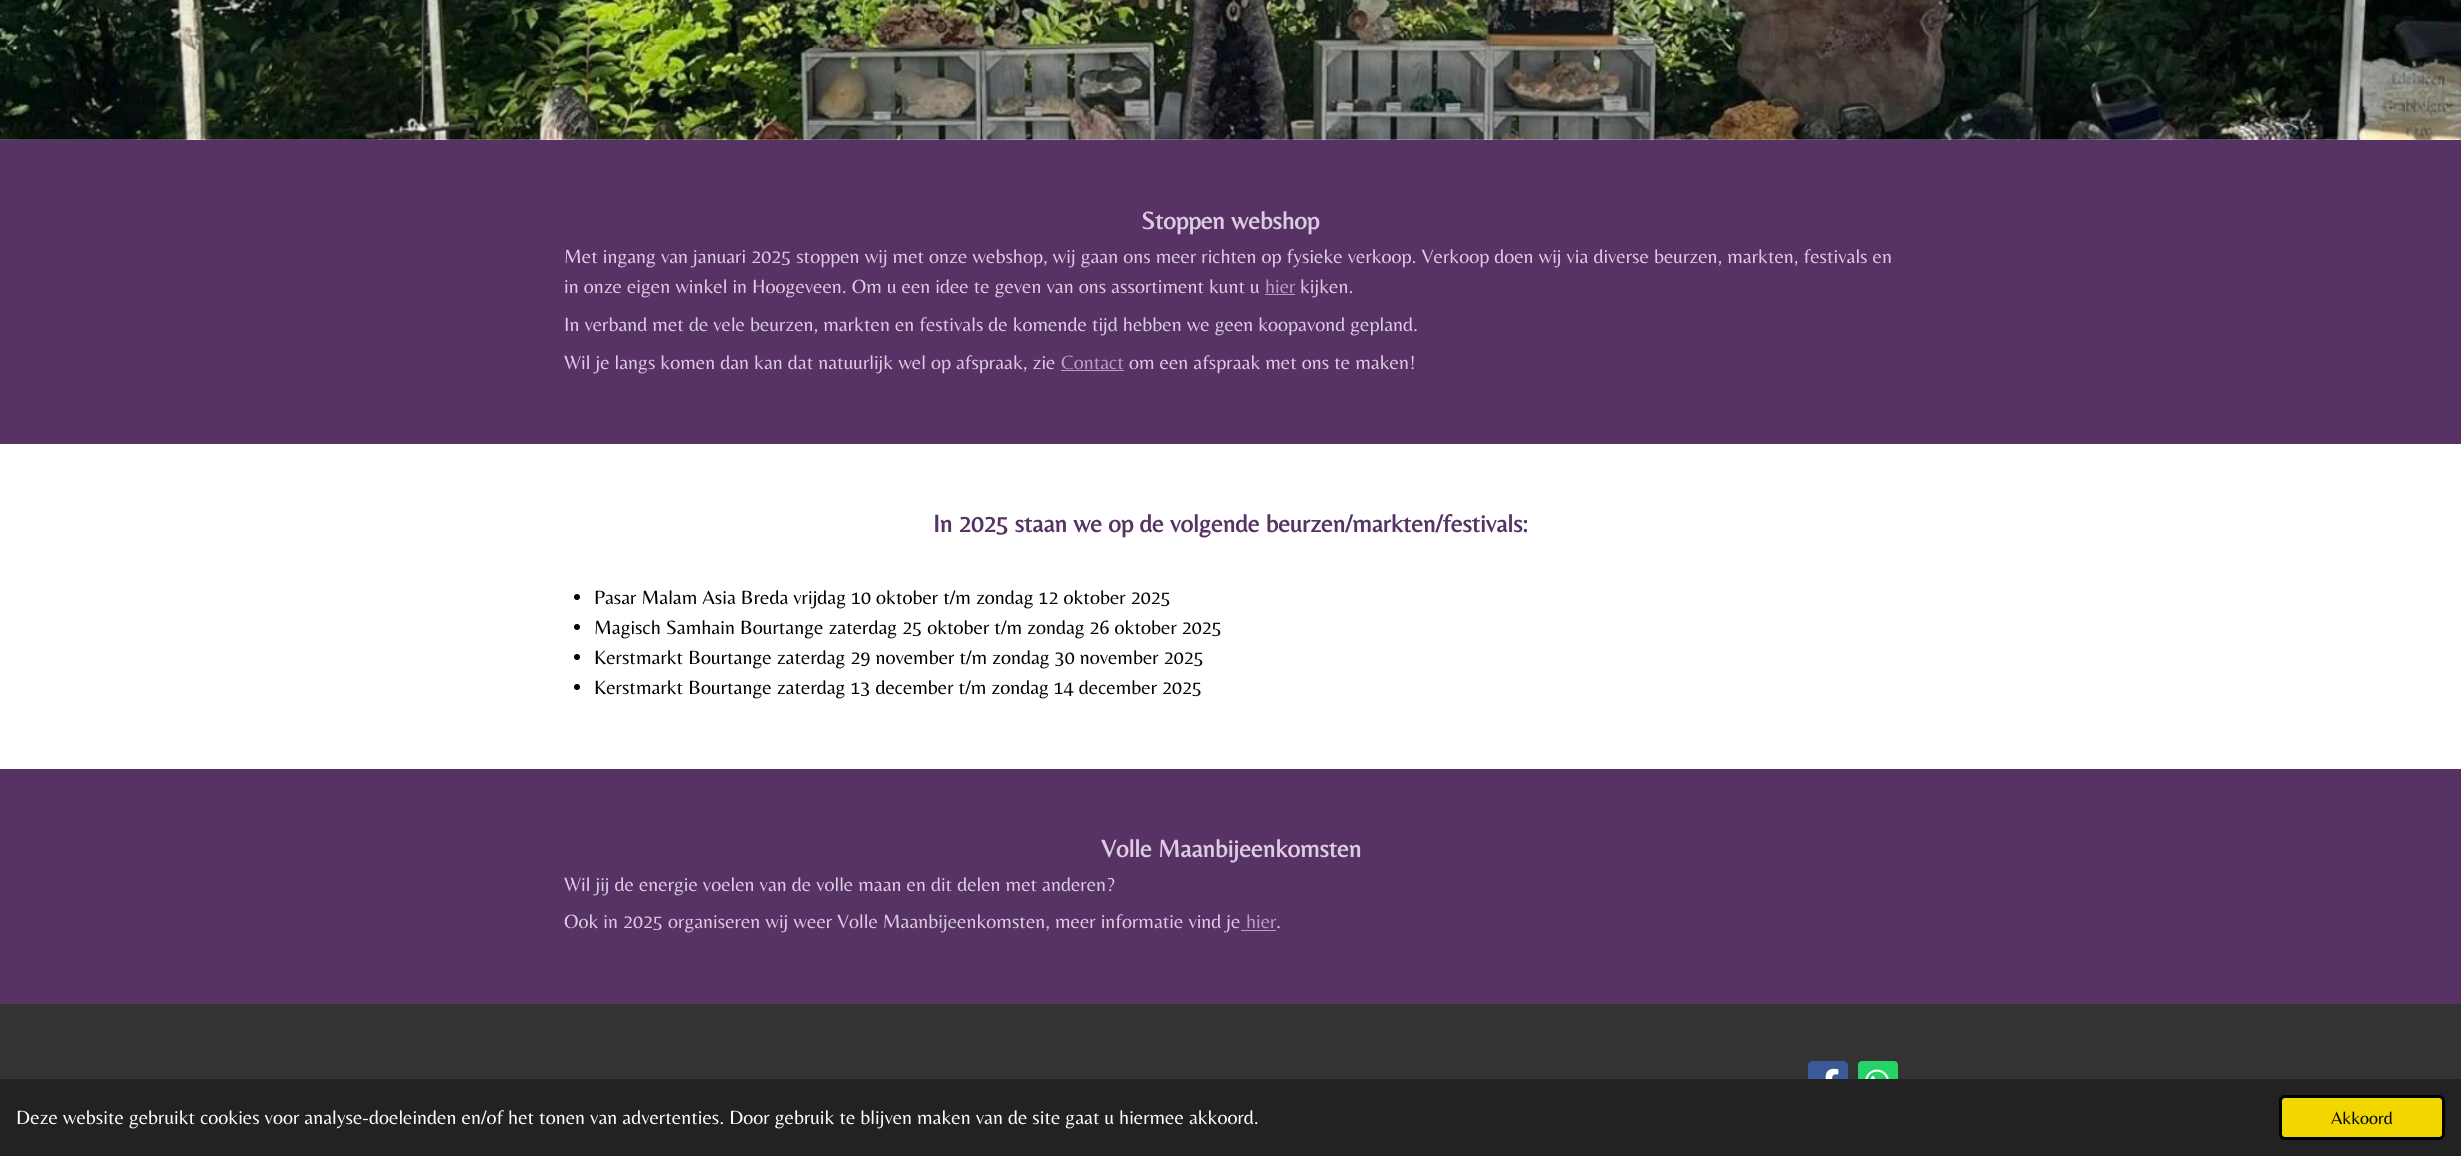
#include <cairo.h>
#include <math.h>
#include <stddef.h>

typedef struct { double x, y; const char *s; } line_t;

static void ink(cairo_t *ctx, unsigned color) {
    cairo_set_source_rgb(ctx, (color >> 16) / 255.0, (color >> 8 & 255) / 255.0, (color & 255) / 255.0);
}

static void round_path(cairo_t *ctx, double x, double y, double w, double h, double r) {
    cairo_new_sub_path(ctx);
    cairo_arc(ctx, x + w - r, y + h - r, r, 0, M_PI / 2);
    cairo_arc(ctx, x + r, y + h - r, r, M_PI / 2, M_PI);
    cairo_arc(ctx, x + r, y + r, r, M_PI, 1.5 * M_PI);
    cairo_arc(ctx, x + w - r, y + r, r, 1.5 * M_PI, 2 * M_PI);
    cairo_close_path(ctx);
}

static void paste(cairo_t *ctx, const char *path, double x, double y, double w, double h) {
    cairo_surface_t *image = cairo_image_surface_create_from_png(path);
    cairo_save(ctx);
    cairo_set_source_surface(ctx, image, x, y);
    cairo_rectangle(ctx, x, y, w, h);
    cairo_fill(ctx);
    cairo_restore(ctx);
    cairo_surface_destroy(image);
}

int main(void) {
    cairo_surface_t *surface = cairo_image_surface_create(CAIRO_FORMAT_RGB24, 2461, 1156);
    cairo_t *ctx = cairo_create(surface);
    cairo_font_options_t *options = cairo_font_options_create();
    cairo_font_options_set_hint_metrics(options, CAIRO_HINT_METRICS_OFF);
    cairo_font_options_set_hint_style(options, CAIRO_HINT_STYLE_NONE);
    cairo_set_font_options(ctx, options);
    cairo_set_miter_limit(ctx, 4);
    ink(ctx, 0xFFFFFF);
    cairo_paint(ctx);
    paste(ctx, "media/1.png", 0, 0, 2461, 140);
    ink(ctx, 0x563364);
    cairo_rectangle(ctx, 0, 140, 2461, 304);
    cairo_fill(ctx);
    cairo_select_font_face(ctx, "Belleza", CAIRO_FONT_SLANT_NORMAL, CAIRO_FONT_WEIGHT_BOLD);
    cairo_set_font_size(ctx, 25);
    ink(ctx, 0xDDCBE4);
    cairo_move_to(ctx, 1141, 229);
    cairo_show_text(ctx, "Stoppen webshop");
    cairo_select_font_face(ctx, "Belleza", CAIRO_FONT_SLANT_NORMAL, CAIRO_FONT_WEIGHT_NORMAL);
    cairo_set_font_size(ctx, 20);
    cairo_move_to(ctx, 564, 263);
    cairo_show_text(ctx, "Met ingang van januari 2025 stoppen wij met onze webshop, wij gaan ons meer richten op fysieke verkoop. Verkoop doen wij via diverse beurzen, markten, festivals en");
    cairo_move_to(ctx, 564, 293);
    cairo_show_text(ctx, "in onze eigen winkel in Hoogeveen. Om u een idee te geven van ons assortiment kunt u");
    ink(ctx, 0xBC98CB);
    cairo_move_to(ctx, 1265, 293);
    cairo_show_text(ctx, "hier");
    cairo_rectangle(ctx, 1265, 294, 30, 1);
    cairo_fill(ctx);
    ink(ctx, 0xDDCBE4);
    {
        static const line_t items[] = {
            {1300, 293, "kijken."},
            {564, 331, "In verband met de vele beurzen, markten en festivals de komende tijd hebben we geen koopavond gepland."},
            {564, 369, "Wil je langs komen dan kan dat natuurlijk wel op afspraak, zie"},
        };
        for (size_t i = 0; i < sizeof items / sizeof *items; i++) {
            cairo_move_to(ctx, items[i].x, items[i].y);
            cairo_show_text(ctx, items[i].s);
        }
    }
    ink(ctx, 0xBC98CB);
    cairo_move_to(ctx, 1061, 369);
    cairo_show_text(ctx, "Contact");
    cairo_rectangle(ctx, 1061, 370, 63, 1);
    cairo_fill(ctx);
    ink(ctx, 0xDDCBE4);
    cairo_move_to(ctx, 1129, 369);
    cairo_show_text(ctx, "om een afspraak met ons te maken!");
    cairo_select_font_face(ctx, "Belleza", CAIRO_FONT_SLANT_NORMAL, CAIRO_FONT_WEIGHT_BOLD);
    cairo_set_font_size(ctx, 25);
    ink(ctx, 0x563364);
    cairo_move_to(ctx, 933, 532);
    cairo_show_text(ctx, "In 2025 staan we op de volgende beurzen/markten/festivals:");
    ink(ctx, 0x000000);
    cairo_new_path(ctx);
    cairo_arc(ctx, 577, 597, 3, 0, 2 * M_PI);
    cairo_fill(ctx);
    cairo_select_font_face(ctx, "Belleza", CAIRO_FONT_SLANT_NORMAL, CAIRO_FONT_WEIGHT_NORMAL);
    cairo_set_font_size(ctx, 20);
    cairo_move_to(ctx, 594, 604);
    cairo_show_text(ctx, "Pasar Malam Asia Breda vrijdag 10 oktober t/m zondag 12 oktober 2025");
    cairo_new_path(ctx);
    cairo_arc(ctx, 577, 627, 3, 0, 2 * M_PI);
    cairo_fill(ctx);
    cairo_move_to(ctx, 594, 634);
    cairo_show_text(ctx, "Magisch Samhain Bourtange zaterdag 25 oktober t/m zondag 26 oktober 2025");
    cairo_new_path(ctx);
    cairo_arc(ctx, 577, 657, 3, 0, 2 * M_PI);
    cairo_fill(ctx);
    cairo_move_to(ctx, 594, 664);
    cairo_show_text(ctx, "Kerstmarkt Bourtange zaterdag 29 november t/m zondag 30 november 2025");
    cairo_new_path(ctx);
    cairo_arc(ctx, 577, 687, 3, 0, 2 * M_PI);
    cairo_fill(ctx);
    cairo_move_to(ctx, 594, 694);
    cairo_show_text(ctx, "Kerstmarkt Bourtange zaterdag 13 december t/m zondag 14 december 2025");
    ink(ctx, 0x563364);
    cairo_rectangle(ctx, 0, 769, 2461, 235);
    cairo_fill(ctx);
    cairo_select_font_face(ctx, "Belleza", CAIRO_FONT_SLANT_NORMAL, CAIRO_FONT_WEIGHT_BOLD);
    cairo_set_font_size(ctx, 25);
    ink(ctx, 0xDDCBE4);
    cairo_move_to(ctx, 1101, 857);
    cairo_show_text(ctx, "Volle Maanbijeenkomsten");
    cairo_select_font_face(ctx, "Belleza", CAIRO_FONT_SLANT_NORMAL, CAIRO_FONT_WEIGHT_NORMAL);
    cairo_set_font_size(ctx, 20);
    cairo_move_to(ctx, 564, 891);
    cairo_show_text(ctx, "Wil jij de energie voelen van de volle maan en dit delen met anderen?");
    cairo_move_to(ctx, 564, 928);
    cairo_show_text(ctx, "Ook in 2025 organiseren wij weer Volle Maanbijeenkomsten, meer informatie vind je");
    ink(ctx, 0xBC98CB);
    cairo_move_to(ctx, 1246, 928);
    cairo_show_text(ctx, "hier");
    cairo_rectangle(ctx, 1241, 930, 35, 1);
    cairo_fill(ctx);
    ink(ctx, 0xDDCBE4);
    cairo_move_to(ctx, 1276, 928);
    cairo_show_text(ctx, ".");
    ink(ctx, 0x333333);
    cairo_rectangle(ctx, 0, 1004, 2461, 75);
    cairo_fill(ctx);
    ink(ctx, 0x3B5998);
    round_path(ctx, 1808, 1061, 40, 40, 5);
    cairo_fill(ctx);
    paste(ctx, "media/2.png", 1825, 1068, 14, 11);
    ink(ctx, 0x25D366);
    round_path(ctx, 1858, 1061, 40, 40, 4);
    cairo_fill(ctx);
    paste(ctx, "media/3.png", 1865, 1069, 24, 10);
    ink(ctx, 0x222222);
    cairo_rectangle(ctx, 0, 1079, 2461, 77);
    cairo_fill(ctx);
    ink(ctx, 0xFFFFFF);
    cairo_move_to(ctx, 16, 1124);
    cairo_show_text(ctx, "Deze website gebruikt cookies voor analyse-doeleinden en/of het tonen van advertenties. Door gebruik te blijven maken van de site gaat u hiermee akkoord.");
    ink(ctx, 0xF1D600);
    round_path(ctx, 2280.5, 1096.5, 163, 42, 4.5);
    cairo_fill_preserve(ctx);
    ink(ctx, 0x000000);
    cairo_set_line_width(ctx, 3);
    cairo_stroke(ctx);
    cairo_set_font_size(ctx, 18);
    cairo_move_to(ctx, 2331, 1124);
    cairo_show_text(ctx, "Akkoord");
    cairo_surface_write_to_png(surface, "image.png");
    cairo_font_options_destroy(options);
    cairo_destroy(ctx);
    cairo_surface_destroy(surface);
    return 0;
}
